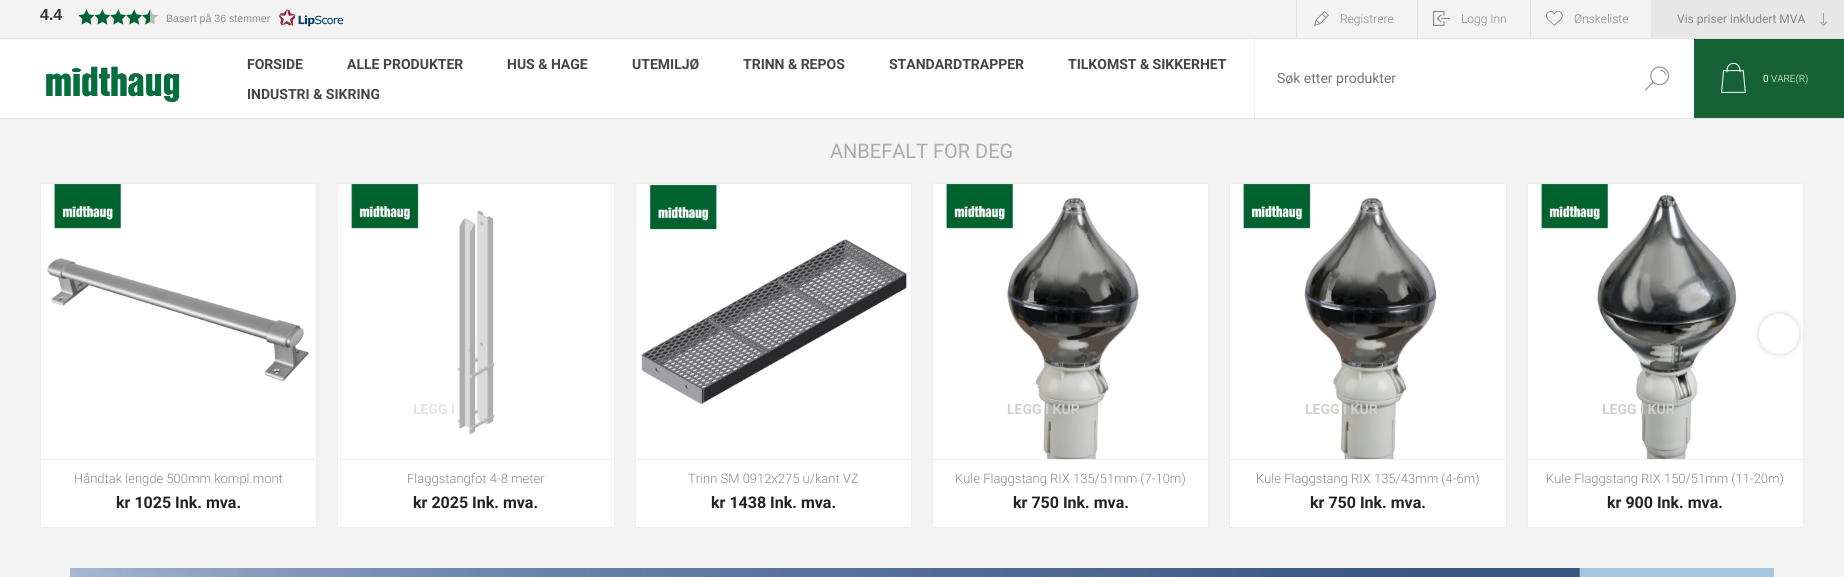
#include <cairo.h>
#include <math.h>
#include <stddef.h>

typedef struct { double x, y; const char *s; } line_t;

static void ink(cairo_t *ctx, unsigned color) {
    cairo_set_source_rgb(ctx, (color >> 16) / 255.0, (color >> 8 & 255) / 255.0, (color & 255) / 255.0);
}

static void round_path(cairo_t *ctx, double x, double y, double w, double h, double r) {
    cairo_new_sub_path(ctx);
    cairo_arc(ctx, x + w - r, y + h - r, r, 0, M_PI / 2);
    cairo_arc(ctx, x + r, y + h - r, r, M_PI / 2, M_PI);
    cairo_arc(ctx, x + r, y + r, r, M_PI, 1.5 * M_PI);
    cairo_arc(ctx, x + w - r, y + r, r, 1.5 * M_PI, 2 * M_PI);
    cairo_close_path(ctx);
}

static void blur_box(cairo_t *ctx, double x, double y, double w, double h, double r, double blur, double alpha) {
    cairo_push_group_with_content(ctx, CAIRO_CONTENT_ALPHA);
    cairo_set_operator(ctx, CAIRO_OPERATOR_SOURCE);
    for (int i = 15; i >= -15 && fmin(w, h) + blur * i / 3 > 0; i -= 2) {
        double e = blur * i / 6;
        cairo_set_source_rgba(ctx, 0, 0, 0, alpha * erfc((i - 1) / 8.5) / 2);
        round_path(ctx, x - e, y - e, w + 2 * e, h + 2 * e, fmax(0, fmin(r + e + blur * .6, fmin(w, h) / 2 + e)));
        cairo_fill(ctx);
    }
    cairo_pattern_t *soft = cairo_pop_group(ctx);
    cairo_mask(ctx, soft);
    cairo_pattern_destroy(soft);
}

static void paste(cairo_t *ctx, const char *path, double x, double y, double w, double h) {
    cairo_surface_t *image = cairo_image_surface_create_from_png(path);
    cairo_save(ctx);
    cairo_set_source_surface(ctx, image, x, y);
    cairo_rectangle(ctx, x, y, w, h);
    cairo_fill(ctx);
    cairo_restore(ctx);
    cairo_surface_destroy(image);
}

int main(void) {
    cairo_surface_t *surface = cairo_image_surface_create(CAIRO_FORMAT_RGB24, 1844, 577);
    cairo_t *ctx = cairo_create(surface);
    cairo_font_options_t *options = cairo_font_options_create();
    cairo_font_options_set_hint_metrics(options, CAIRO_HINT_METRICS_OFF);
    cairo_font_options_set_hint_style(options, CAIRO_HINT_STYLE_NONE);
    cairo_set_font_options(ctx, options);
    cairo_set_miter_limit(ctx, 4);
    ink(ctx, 0xF3F3F3);
    cairo_paint(ctx);
    ink(ctx, 0xE3E3E3);
    cairo_rectangle(ctx, 0, 38, 1844, 1);
    cairo_fill(ctx);
    cairo_select_font_face(ctx, "Liberation Sans", CAIRO_FONT_SLANT_NORMAL, CAIRO_FONT_WEIGHT_BOLD);
    cairo_set_font_size(ctx, 16);
    ink(ctx, 0x333333);
    cairo_move_to(ctx, 40, 20);
    cairo_show_text(ctx, "4.4");
    paste(ctx, "media/1.png", 78, 8, 266, 19);
    cairo_select_font_face(ctx, "Liberation Sans", CAIRO_FONT_SLANT_NORMAL, CAIRO_FONT_WEIGHT_NORMAL);
    cairo_set_font_size(ctx, 10.6);
    ink(ctx, 0x8C8F93);
    cairo_move_to(ctx, 166, 22);
    cairo_show_text(ctx, "Basert på 36 stemmer");
    ink(ctx, 0xE3E3E3);
    cairo_rectangle(ctx, 1651, 0, 1, 38);
    cairo_fill(ctx);
    ink(ctx, 0xE7E7E7);
    cairo_rectangle(ctx, 1652, 0, 192, 38);
    cairo_fill(ctx);
    paste(ctx, "media/2.png", 1820, 13, 7, 13);
    cairo_select_font_face(ctx, "Roboto", CAIRO_FONT_SLANT_NORMAL, CAIRO_FONT_WEIGHT_NORMAL);
    cairo_set_font_size(ctx, 12);
    ink(ctx, 0x888888);
    cairo_move_to(ctx, 1677, 23);
    cairo_show_text(ctx, "Vis priser inkludert MVA");
    ink(ctx, 0xE3E3E3);
    cairo_rectangle(ctx, 1296, 0, 1, 38);
    cairo_fill(ctx);
    paste(ctx, "media/3.png", 1314, 11, 15, 15);
    cairo_select_font_face(ctx, "Roboto Light", CAIRO_FONT_SLANT_NORMAL, CAIRO_FONT_WEIGHT_NORMAL);
    ink(ctx, 0x888888);
    cairo_move_to(ctx, 1340, 23);
    cairo_show_text(ctx, "Registrere");
    ink(ctx, 0xE3E3E3);
    cairo_rectangle(ctx, 1417, 0, 1, 38);
    cairo_fill(ctx);
    paste(ctx, "media/4.png", 1433, 10, 18, 16);
    ink(ctx, 0x888888);
    cairo_move_to(ctx, 1461, 23);
    cairo_show_text(ctx, "Logg Inn");
    ink(ctx, 0xE3E3E3);
    cairo_rectangle(ctx, 1530, 0, 1, 38);
    cairo_fill(ctx);
    paste(ctx, "media/5.png", 1546, 11, 17, 15);
    ink(ctx, 0x888888);
    cairo_move_to(ctx, 1574, 23);
    cairo_show_text(ctx, "Ønskeliste");
    ink(ctx, 0xFFFFFF);
    cairo_rectangle(ctx, 0, 39, 1694, 79);
    cairo_fill(ctx);
    ink(ctx, 0xE3E3E3);
    cairo_rectangle(ctx, 0, 118, 1844, 1);
    cairo_fill(ctx);
    paste(ctx, "media/6.png", 46, 66, 134, 37);
    cairo_select_font_face(ctx, "Roboto", CAIRO_FONT_SLANT_NORMAL, CAIRO_FONT_WEIGHT_BOLD);
    cairo_set_font_size(ctx, 14);
    ink(ctx, 0x444444);
    {
        static const line_t items[] = {
            {247, 69, "FORSIDE"},
            {347, 69, "ALLE PRODUKTER"},
            {507, 69, "HUS & HAGE"},
            {632, 69, "UTEMILJØ"},
            {743, 69, "TRINN & REPOS"},
            {889, 69, "STANDARDTRAPPER"},
            {1068, 69, "TILKOMST & SIKKERHET"},
            {247, 99, "INDUSTRI & SIKRING"},
        };
        for (size_t i = 0; i < sizeof items / sizeof *items; i++) {
            cairo_move_to(ctx, items[i].x, items[i].y);
            cairo_show_text(ctx, items[i].s);
        }
    }
    ink(ctx, 0xEEEEEE);
    cairo_rectangle(ctx, 1254, 39, 1, 79);
    cairo_fill(ctx);
    cairo_select_font_face(ctx, "Roboto", CAIRO_FONT_SLANT_NORMAL, CAIRO_FONT_WEIGHT_NORMAL);
    ink(ctx, 0x757575);
    cairo_move_to(ctx, 1277, 83);
    cairo_show_text(ctx, "Søk etter produkter");
    paste(ctx, "media/7.png", 1645, 66, 24, 25);
    ink(ctx, 0x146236);
    cairo_rectangle(ctx, 1694, 39, 150, 79);
    cairo_fill(ctx);
    paste(ctx, "media/8.png", 1721, 62, 25, 31);
    cairo_set_font_size(ctx, 10);
    ink(ctx, 0xFFFFFF);
    cairo_move_to(ctx, 1763, 82);
    cairo_show_text(ctx, "0");
    cairo_select_font_face(ctx, "Roboto Light", CAIRO_FONT_SLANT_NORMAL, CAIRO_FONT_WEIGHT_NORMAL);
    cairo_move_to(ctx, 1771, 82);
    cairo_show_text(ctx, "VARE(R)");
    cairo_select_font_face(ctx, "Roboto", CAIRO_FONT_SLANT_NORMAL, CAIRO_FONT_WEIGHT_NORMAL);
    cairo_set_font_size(ctx, 20);
    ink(ctx, 0xAAAAAA);
    cairo_move_to(ctx, 830, 158);
    cairo_show_text(ctx, "ANBEFALT FOR DEG");
    ink(ctx, 0xFFFFFF);
    cairo_rectangle(ctx, 1527.5, 183.5, 276, 344);
    cairo_fill_preserve(ctx);
    ink(ctx, 0xEEEEEE);
    cairo_set_line_width(ctx, 1);
    cairo_stroke(ctx);
    ink(ctx, 0xBBBBBB);
    blur_box(ctx, 1758, 313, 42, 42, 21, 2.5, 0.5);
    ink(ctx, 0xFFFFFF);
    cairo_arc(ctx, 1779, 334, 20, 0, 2 * M_PI);
    cairo_fill(ctx);
    cairo_rectangle(ctx, 40.5, 183.5, 276, 344);
    cairo_fill_preserve(ctx);
    ink(ctx, 0xEEEEEE);
    cairo_stroke(ctx);
    cairo_rectangle(ctx, 41, 459, 275, 1);
    cairo_fill(ctx);
    paste(ctx, "media/9.png", 47, 184, 262, 198);
    cairo_select_font_face(ctx, "Roboto Light", CAIRO_FONT_SLANT_NORMAL, CAIRO_FONT_WEIGHT_NORMAL);
    cairo_set_font_size(ctx, 13);
    ink(ctx, 0x888888);
    cairo_move_to(ctx, 74, 483);
    cairo_show_text(ctx, "Håndtak lengde 500mm kompl.mont");
    cairo_select_font_face(ctx, "Roboto", CAIRO_FONT_SLANT_NORMAL, CAIRO_FONT_WEIGHT_BOLD);
    cairo_set_font_size(ctx, 16);
    ink(ctx, 0x222222);
    cairo_move_to(ctx, 116, 508);
    cairo_show_text(ctx, "kr 1025 Ink. mva.");
    ink(ctx, 0xFFFFFF);
    cairo_rectangle(ctx, 337.5, 183.5, 277, 344);
    cairo_fill_preserve(ctx);
    ink(ctx, 0xEEEEEE);
    cairo_stroke(ctx);
    cairo_rectangle(ctx, 338, 459, 276, 1);
    cairo_fill(ctx);
    paste(ctx, "media/10.png", 350, 184, 145, 251);
    cairo_set_font_size(ctx, 14);
    ink(ctx, 0xE4E4E4);
    cairo_move_to(ctx, 413, 414);
    cairo_show_text(ctx, "LEGG I");
    cairo_select_font_face(ctx, "Roboto Light", CAIRO_FONT_SLANT_NORMAL, CAIRO_FONT_WEIGHT_NORMAL);
    cairo_set_font_size(ctx, 13);
    ink(ctx, 0x888888);
    cairo_move_to(ctx, 407, 483);
    cairo_show_text(ctx, "Flaggstangfot 4-8 meter");
    cairo_select_font_face(ctx, "Roboto", CAIRO_FONT_SLANT_NORMAL, CAIRO_FONT_WEIGHT_BOLD);
    cairo_set_font_size(ctx, 16);
    ink(ctx, 0x222222);
    cairo_move_to(ctx, 413, 508);
    cairo_show_text(ctx, "kr 2025 Ink. mva.");
    ink(ctx, 0xFFFFFF);
    cairo_rectangle(ctx, 635.5, 183.5, 276, 344);
    cairo_fill_preserve(ctx);
    ink(ctx, 0xEEEEEE);
    cairo_stroke(ctx);
    cairo_rectangle(ctx, 636, 459, 275, 1);
    cairo_fill(ctx);
    paste(ctx, "media/11.png", 641, 185, 266, 220);
    cairo_select_font_face(ctx, "Roboto Light", CAIRO_FONT_SLANT_NORMAL, CAIRO_FONT_WEIGHT_NORMAL);
    cairo_set_font_size(ctx, 13);
    ink(ctx, 0x888888);
    cairo_move_to(ctx, 688, 483);
    cairo_show_text(ctx, "Trinn SM 0912x275 u/kant VZ");
    cairo_select_font_face(ctx, "Roboto", CAIRO_FONT_SLANT_NORMAL, CAIRO_FONT_WEIGHT_BOLD);
    cairo_set_font_size(ctx, 16);
    ink(ctx, 0x222222);
    cairo_move_to(ctx, 711, 508);
    cairo_show_text(ctx, "kr 1438 Ink. mva.");
    ink(ctx, 0xFFFFFF);
    cairo_rectangle(ctx, 932.5, 183.5, 276, 344);
    cairo_fill_preserve(ctx);
    ink(ctx, 0xEEEEEE);
    cairo_stroke(ctx);
    cairo_rectangle(ctx, 933, 459, 275, 1);
    cairo_fill(ctx);
    paste(ctx, "media/12.png", 945, 184, 194, 275);
    cairo_set_font_size(ctx, 14);
    ink(ctx, 0xD0D0CD);
    cairo_move_to(ctx, 1007, 414);
    cairo_show_text(ctx, "LEGG I KUR");
    cairo_select_font_face(ctx, "Roboto Light", CAIRO_FONT_SLANT_NORMAL, CAIRO_FONT_WEIGHT_NORMAL);
    cairo_set_font_size(ctx, 13);
    ink(ctx, 0x888888);
    cairo_move_to(ctx, 955, 483);
    cairo_show_text(ctx, "Kule Flaggstang RIX 135/51mm (7-10m)");
    cairo_select_font_face(ctx, "Roboto", CAIRO_FONT_SLANT_NORMAL, CAIRO_FONT_WEIGHT_BOLD);
    cairo_set_font_size(ctx, 16);
    ink(ctx, 0x222222);
    cairo_move_to(ctx, 1013, 508);
    cairo_show_text(ctx, "kr 750 Ink. mva.");
    ink(ctx, 0xFFFFFF);
    cairo_rectangle(ctx, 1229.5, 183.5, 277, 344);
    cairo_fill_preserve(ctx);
    ink(ctx, 0xEEEEEE);
    cairo_stroke(ctx);
    cairo_rectangle(ctx, 1230, 459, 276, 1);
    cairo_fill(ctx);
    paste(ctx, "media/13.png", 1242, 184, 195, 275);
    cairo_set_font_size(ctx, 14);
    ink(ctx, 0xD0D0CD);
    cairo_move_to(ctx, 1305, 414);
    cairo_show_text(ctx, "LEGG I KUR");
    cairo_select_font_face(ctx, "Roboto Light", CAIRO_FONT_SLANT_NORMAL, CAIRO_FONT_WEIGHT_NORMAL);
    cairo_set_font_size(ctx, 13);
    ink(ctx, 0x888888);
    cairo_move_to(ctx, 1256, 483);
    cairo_show_text(ctx, "Kule Flaggstang RIX 135/43mm (4-6m)");
    cairo_select_font_face(ctx, "Roboto", CAIRO_FONT_SLANT_NORMAL, CAIRO_FONT_WEIGHT_BOLD);
    cairo_set_font_size(ctx, 16);
    ink(ctx, 0x222222);
    cairo_move_to(ctx, 1310, 508);
    cairo_show_text(ctx, "kr 750 Ink. mva.");
    ink(ctx, 0xEEEEEE);
    cairo_rectangle(ctx, 1528, 459, 275, 1);
    cairo_fill(ctx);
    paste(ctx, "media/14.png", 1540, 184, 197, 275);
    cairo_set_font_size(ctx, 14);
    ink(ctx, 0xD0D0CD);
    cairo_move_to(ctx, 1602, 414);
    cairo_show_text(ctx, "LEGG I KUR");
    cairo_select_font_face(ctx, "Roboto Light", CAIRO_FONT_SLANT_NORMAL, CAIRO_FONT_WEIGHT_NORMAL);
    cairo_set_font_size(ctx, 13);
    ink(ctx, 0x888888);
    cairo_move_to(ctx, 1546, 483);
    cairo_show_text(ctx, "Kule Flaggstang RIX 150/51mm (11-20m)");
    cairo_select_font_face(ctx, "Roboto", CAIRO_FONT_SLANT_NORMAL, CAIRO_FONT_WEIGHT_BOLD);
    cairo_set_font_size(ctx, 16);
    ink(ctx, 0x222222);
    cairo_move_to(ctx, 1607, 508);
    cairo_show_text(ctx, "kr 900 Ink. mva.");
    paste(ctx, "media/15.png", 70, 568, 1704, 9);
    cairo_surface_write_to_png(surface, "image.png");
    cairo_font_options_destroy(options);
    cairo_destroy(ctx);
    cairo_surface_destroy(surface);
    return 0;
}
